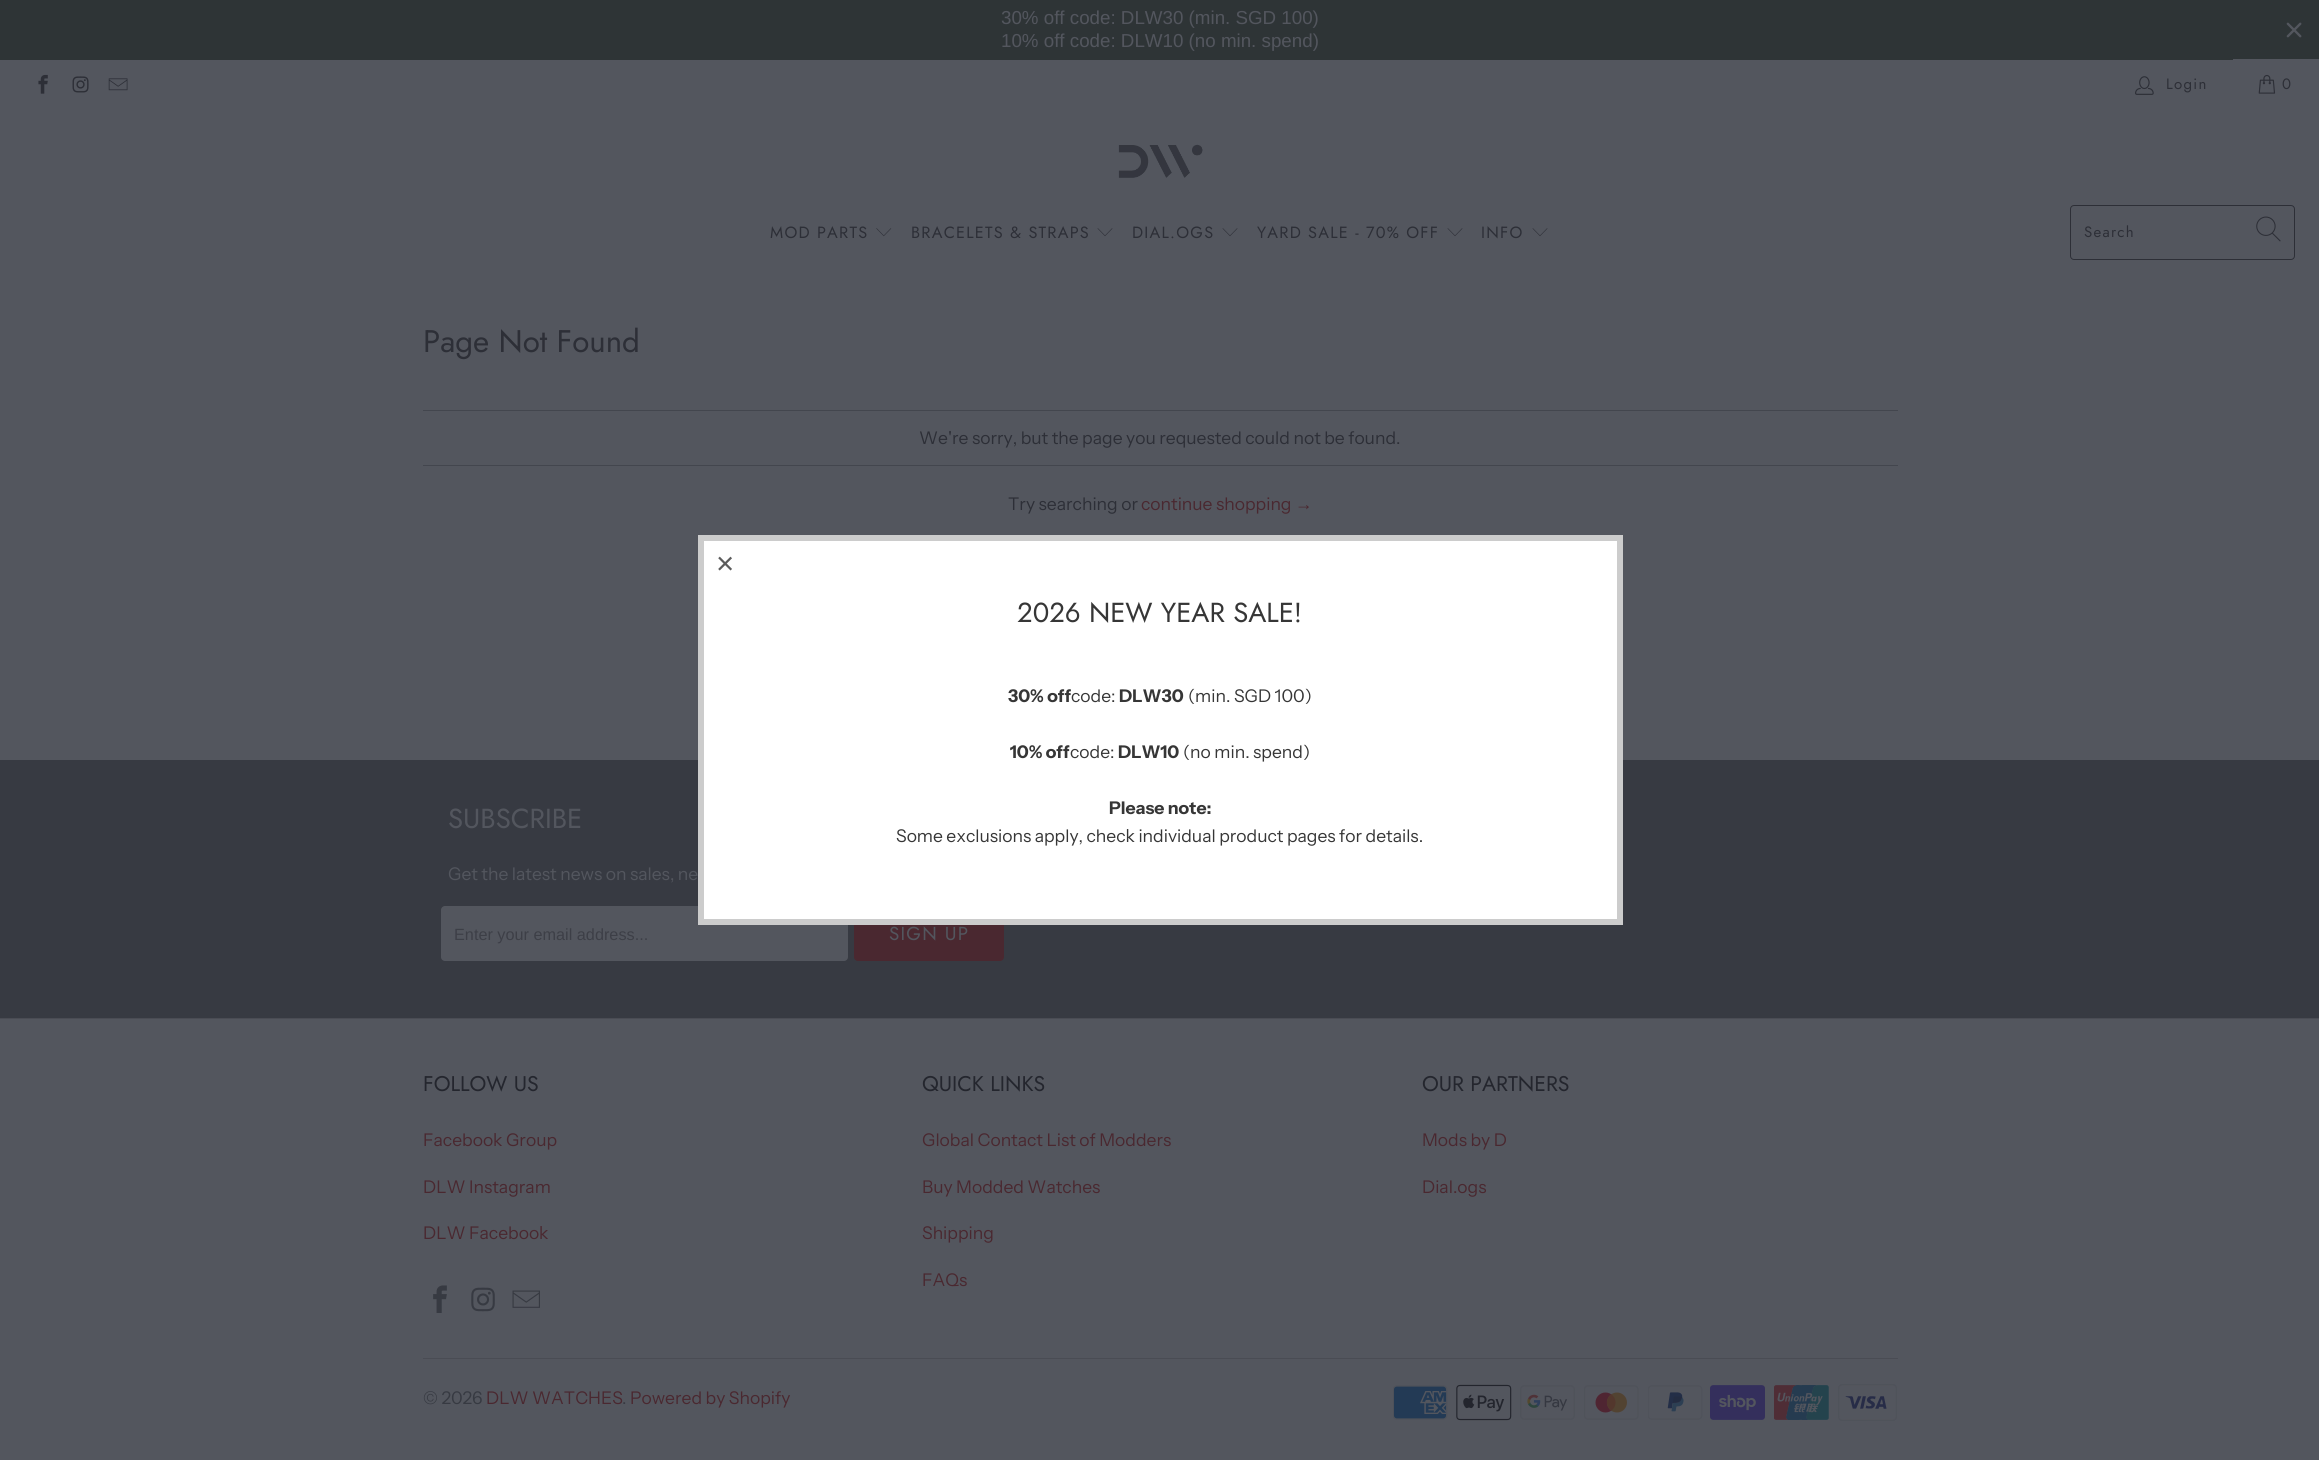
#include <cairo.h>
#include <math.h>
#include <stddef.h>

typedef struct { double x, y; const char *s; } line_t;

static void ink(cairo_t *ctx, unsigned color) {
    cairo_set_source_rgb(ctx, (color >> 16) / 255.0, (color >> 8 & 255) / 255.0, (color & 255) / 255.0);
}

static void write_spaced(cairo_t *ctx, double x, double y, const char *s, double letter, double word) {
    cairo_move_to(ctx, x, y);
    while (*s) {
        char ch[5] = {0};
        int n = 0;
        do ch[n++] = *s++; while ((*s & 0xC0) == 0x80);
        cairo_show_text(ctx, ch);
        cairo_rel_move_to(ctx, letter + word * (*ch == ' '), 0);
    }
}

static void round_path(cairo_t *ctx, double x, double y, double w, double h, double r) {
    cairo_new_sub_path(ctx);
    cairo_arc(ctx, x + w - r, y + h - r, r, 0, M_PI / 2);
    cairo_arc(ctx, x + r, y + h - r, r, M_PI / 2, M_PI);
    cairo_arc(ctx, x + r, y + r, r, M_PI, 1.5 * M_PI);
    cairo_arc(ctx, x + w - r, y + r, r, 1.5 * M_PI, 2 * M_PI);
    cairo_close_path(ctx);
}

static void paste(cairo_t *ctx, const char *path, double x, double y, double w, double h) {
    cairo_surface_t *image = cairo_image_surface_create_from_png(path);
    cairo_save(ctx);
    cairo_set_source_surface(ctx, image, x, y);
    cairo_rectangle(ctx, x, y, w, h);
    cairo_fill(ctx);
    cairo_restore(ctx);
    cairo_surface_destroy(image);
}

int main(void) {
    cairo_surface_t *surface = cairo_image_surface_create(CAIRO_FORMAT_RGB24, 2319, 1460);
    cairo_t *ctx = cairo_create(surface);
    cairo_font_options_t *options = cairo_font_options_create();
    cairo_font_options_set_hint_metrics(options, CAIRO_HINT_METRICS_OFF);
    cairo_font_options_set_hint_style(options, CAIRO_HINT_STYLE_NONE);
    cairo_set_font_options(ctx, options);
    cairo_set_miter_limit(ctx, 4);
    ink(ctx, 0x53565E);
    cairo_paint(ctx);
    ink(ctx, 0x2E3436);
    cairo_rectangle(ctx, 0, 0, 2319, 60);
    cairo_fill(ctx);
    cairo_select_font_face(ctx, "Liberation Sans", CAIRO_FONT_SLANT_NORMAL, CAIRO_FONT_WEIGHT_NORMAL);
    cairo_set_font_size(ctx, 18.75);
    ink(ctx, 0x53565E);
    cairo_move_to(ctx, 1001, 24);
    cairo_show_text(ctx, "30% off code: DLW30 (min. SGD 100)");
    cairo_move_to(ctx, 1001, 47);
    cairo_show_text(ctx, "10% off code: DLW10 (no min. spend)");
    paste(ctx, "media/1.png", 2286, 22, 16, 16);
    paste(ctx, "media/2.png", 38, 74, 10, 20);
    paste(ctx, "media/3.png", 72, 76, 17, 17);
    paste(ctx, "media/4.png", 108, 78, 20, 13);
    paste(ctx, "media/5.png", 2135, 76, 19, 19);
    cairo_select_font_face(ctx, "Jost", CAIRO_FONT_SLANT_NORMAL, CAIRO_FONT_WEIGHT_NORMAL);
    cairo_set_font_size(ctx, 15);
    ink(ctx, 0x2D2F37);
    write_spaced(ctx, 2166, 89, "Login", 1.25, 0);
    ink(ctx, 0x53565E);
    cairo_rectangle(ctx, 2233, 59, 86, 1);
    cairo_fill(ctx);
    paste(ctx, "media/6.png", 2258, 74, 18, 20);
    ink(ctx, 0x2D2F37);
    write_spaced(ctx, 2282, 89, "0", 1.25, 0);
    paste(ctx, "media/7.png", 1118, 144, 85, 34);
    cairo_set_font_size(ctx, 16.25);
    write_spaced(ctx, 770, 238, "MOD PARTS", 1.25, 0);
    paste(ctx, "media/8.png", 876, 228, 16, 9);
    write_spaced(ctx, 911, 238, "BRACELETS & STRAPS", 1.25, 0);
    paste(ctx, "media/9.png", 1097, 228, 16, 9);
    write_spaced(ctx, 1132, 238, "DIAL.OGS", 1.25, 0);
    paste(ctx, "media/9.png", 1222, 228, 16, 9);
    write_spaced(ctx, 1257, 238, "YARD SALE - 70% OFF", 1.25, 0);
    paste(ctx, "media/9.png", 1447, 228, 16, 9);
    write_spaced(ctx, 1481, 238, "INFO", 1.25, 0);
    paste(ctx, "media/9.png", 1532, 228, 16, 9);
    round_path(ctx, 2070.5, 205.5, 224, 54, 3.5);
    cairo_set_line_width(ctx, 1);
    cairo_stroke(ctx);
    cairo_set_font_size(ctx, 15);
    write_spaced(ctx, 2084, 237, "Search", 1.25, 0);
    paste(ctx, "media/10.png", 2256, 216, 25, 26);
    cairo_set_font_size(ctx, 31.25);
    cairo_move_to(ctx, 423, 352);
    cairo_show_text(ctx, "Page Not Found");
    ink(ctx, 0x43464E);
    cairo_rectangle(ctx, 423, 410, 1475, 1);
    cairo_fill(ctx);
    cairo_rectangle(ctx, 423, 465, 1475, 1);
    cairo_fill(ctx);
    cairo_select_font_face(ctx, "Instrument Sans", CAIRO_FONT_SLANT_NORMAL, CAIRO_FONT_WEIGHT_NORMAL);
    cairo_set_font_size(ctx, 17.5);
    ink(ctx, 0x2D2F37);
    cairo_move_to(ctx, 919, 444);
    cairo_show_text(ctx, "We're sorry, but the page you requested could not be found.");
    cairo_move_to(ctx, 1008, 510);
    cairo_show_text(ctx, "Try searching or");
    ink(ctx, 0x4A2830);
    cairo_move_to(ctx, 1141, 510);
    cairo_show_text(ctx, "continue shopping");
    cairo_select_font_face(ctx, "Liberation Sans", CAIRO_FONT_SLANT_NORMAL, CAIRO_FONT_WEIGHT_NORMAL);
    cairo_move_to(ctx, 1295, 510);
    cairo_show_text(ctx, "→");
    ink(ctx, 0x373A42);
    cairo_rectangle(ctx, 0, 760, 2319, 258);
    cairo_fill(ctx);
    ink(ctx, 0x53565E);
    round_path(ctx, 441, 906, 407, 55, 4);
    cairo_fill(ctx);
    ink(ctx, 0x4A2830);
    round_path(ctx, 854.5, 906.5, 149, 54, 3.5);
    cairo_fill_preserve(ctx);
    cairo_stroke(ctx);
    ink(ctx, 0xFFFFFF);
    cairo_rectangle(ctx, 701, 538, 919, 384);
    cairo_fill_preserve(ctx);
    ink(ctx, 0xCCCCCC);
    cairo_set_line_width(ctx, 6);
    cairo_stroke(ctx);
    cairo_set_font_size(ctx, 31.25);
    ink(ctx, 0x5C5C5C);
    write_spaced(ctx, 716, 574, "×", 1.25, 0);
    cairo_select_font_face(ctx, "Jost", CAIRO_FONT_SLANT_NORMAL, CAIRO_FONT_WEIGHT_NORMAL);
    cairo_set_font_size(ctx, 27.5);
    ink(ctx, 0x363636);
    cairo_move_to(ctx, 1017, 622);
    cairo_show_text(ctx, "2026 NEW YEAR SALE!");
    cairo_select_font_face(ctx, "Instrument Sans", CAIRO_FONT_SLANT_NORMAL, CAIRO_FONT_WEIGHT_BOLD);
    cairo_set_font_size(ctx, 17.5);
    cairo_move_to(ctx, 1008, 702);
    cairo_show_text(ctx, "30% off");
    cairo_select_font_face(ctx, "Instrument Sans", CAIRO_FONT_SLANT_NORMAL, CAIRO_FONT_WEIGHT_NORMAL);
    cairo_move_to(ctx, 1071, 702);
    cairo_show_text(ctx, "code:");
    cairo_select_font_face(ctx, "Instrument Sans", CAIRO_FONT_SLANT_NORMAL, CAIRO_FONT_WEIGHT_BOLD);
    cairo_move_to(ctx, 1119, 702);
    cairo_show_text(ctx, "DLW30");
    cairo_select_font_face(ctx, "Instrument Sans", CAIRO_FONT_SLANT_NORMAL, CAIRO_FONT_WEIGHT_NORMAL);
    cairo_move_to(ctx, 1188, 702);
    cairo_show_text(ctx, "(min. SGD 100)");
    cairo_select_font_face(ctx, "Instrument Sans", CAIRO_FONT_SLANT_NORMAL, CAIRO_FONT_WEIGHT_BOLD);
    cairo_move_to(ctx, 1010, 758);
    cairo_show_text(ctx, "10% off");
    cairo_select_font_face(ctx, "Instrument Sans", CAIRO_FONT_SLANT_NORMAL, CAIRO_FONT_WEIGHT_NORMAL);
    cairo_move_to(ctx, 1070, 758);
    cairo_show_text(ctx, "code:");
    cairo_select_font_face(ctx, "Instrument Sans", CAIRO_FONT_SLANT_NORMAL, CAIRO_FONT_WEIGHT_BOLD);
    cairo_move_to(ctx, 1118, 758);
    cairo_show_text(ctx, "DLW10");
    cairo_select_font_face(ctx, "Instrument Sans", CAIRO_FONT_SLANT_NORMAL, CAIRO_FONT_WEIGHT_NORMAL);
    cairo_move_to(ctx, 1183, 758);
    cairo_show_text(ctx, "(no min. spend)");
    cairo_select_font_face(ctx, "Instrument Sans", CAIRO_FONT_SLANT_NORMAL, CAIRO_FONT_WEIGHT_BOLD);
    cairo_move_to(ctx, 1109, 814);
    cairo_show_text(ctx, "Please note:");
    cairo_select_font_face(ctx, "Instrument Sans", CAIRO_FONT_SLANT_NORMAL, CAIRO_FONT_WEIGHT_NORMAL);
    cairo_move_to(ctx, 896, 842);
    cairo_show_text(ctx, "Some exclusions apply, check individual product pages for details.");
    cairo_select_font_face(ctx, "Jost", CAIRO_FONT_SLANT_NORMAL, CAIRO_FONT_WEIGHT_NORMAL);
    cairo_set_font_size(ctx, 27.5);
    ink(ctx, 0x53565E);
    cairo_move_to(ctx, 448, 828);
    cairo_show_text(ctx, "SUBSCRIBE");
    cairo_select_font_face(ctx, "Instrument Sans", CAIRO_FONT_SLANT_NORMAL, CAIRO_FONT_WEIGHT_NORMAL);
    cairo_set_font_size(ctx, 17.5);
    cairo_move_to(ctx, 448, 880);
    cairo_show_text(ctx, "Get the latest news on sales, ne");
    cairo_select_font_face(ctx, "Liberation Sans", CAIRO_FONT_SLANT_NORMAL, CAIRO_FONT_WEIGHT_NORMAL);
    cairo_set_font_size(ctx, 16.25);
    ink(ctx, 0x3D3F47);
    cairo_move_to(ctx, 454, 940);
    cairo_show_text(ctx, "Enter your email address...");
    cairo_select_font_face(ctx, "Jost", CAIRO_FONT_SLANT_NORMAL, CAIRO_FONT_WEIGHT_NORMAL);
    cairo_set_font_size(ctx, 18.75);
    ink(ctx, 0x53565E);
    write_spaced(ctx, 889, 940, "SIGN UP", 1.25, 0);
    ink(ctx, 0x4A4C54);
    cairo_rectangle(ctx, 0, 1018, 2319, 1);
    cairo_fill(ctx);
    cairo_set_font_size(ctx, 21.25);
    ink(ctx, 0x24262E);
    cairo_move_to(ctx, 423, 1091);
    cairo_show_text(ctx, "FOLLOW US");
    cairo_select_font_face(ctx, "Instrument Sans", CAIRO_FONT_SLANT_NORMAL, CAIRO_FONT_WEIGHT_NORMAL);
    cairo_set_font_size(ctx, 17.5);
    ink(ctx, 0x4A2830);
    {
        static const line_t items[] = {
            {423, 1146, "Facebook Group"},
            {423, 1193, "DLW Instagram"},
            {423, 1239, "DLW Facebook"},
        };
        for (size_t i = 0; i < sizeof items / sizeof *items; i++) {
            cairo_move_to(ctx, items[i].x, items[i].y);
            cairo_show_text(ctx, items[i].s);
        }
    }
    paste(ctx, "media/11.png", 433, 1285, 14, 28);
    paste(ctx, "media/12.png", 471, 1287, 24, 25);
    paste(ctx, "media/13.png", 512, 1290, 28, 18);
    cairo_select_font_face(ctx, "Jost", CAIRO_FONT_SLANT_NORMAL, CAIRO_FONT_WEIGHT_NORMAL);
    cairo_set_font_size(ctx, 21.25);
    ink(ctx, 0x24262E);
    cairo_move_to(ctx, 922, 1091);
    cairo_show_text(ctx, "QUICK LINKS");
    cairo_select_font_face(ctx, "Instrument Sans", CAIRO_FONT_SLANT_NORMAL, CAIRO_FONT_WEIGHT_NORMAL);
    cairo_set_font_size(ctx, 17.5);
    ink(ctx, 0x4A2830);
    {
        static const line_t items[] = {
            {922, 1146, "Global Contact List of Modders"},
            {922, 1193, "Buy Modded Watches"},
            {922, 1239, "Shipping"},
            {922, 1286, "FAQs"},
        };
        for (size_t i = 0; i < sizeof items / sizeof *items; i++) {
            cairo_move_to(ctx, items[i].x, items[i].y);
            cairo_show_text(ctx, items[i].s);
        }
    }
    cairo_select_font_face(ctx, "Jost", CAIRO_FONT_SLANT_NORMAL, CAIRO_FONT_WEIGHT_NORMAL);
    cairo_set_font_size(ctx, 21.25);
    ink(ctx, 0x24262E);
    cairo_move_to(ctx, 1422, 1091);
    cairo_show_text(ctx, "OUR PARTNERS");
    cairo_select_font_face(ctx, "Instrument Sans", CAIRO_FONT_SLANT_NORMAL, CAIRO_FONT_WEIGHT_NORMAL);
    cairo_set_font_size(ctx, 17.5);
    ink(ctx, 0x4A2830);
    cairo_move_to(ctx, 1422, 1146);
    cairo_show_text(ctx, "Mods by D");
    cairo_move_to(ctx, 1422, 1193);
    cairo_show_text(ctx, "Dial.ogs");
    ink(ctx, 0x4A4C54);
    cairo_rectangle(ctx, 423, 1358, 1475, 1);
    cairo_fill(ctx);
    ink(ctx, 0x373A42);
    cairo_move_to(ctx, 423, 1404);
    cairo_show_text(ctx, "© 2026");
    ink(ctx, 0x4A2830);
    cairo_move_to(ctx, 486, 1404);
    cairo_show_text(ctx, "DLW WATCHES");
    ink(ctx, 0x373A42);
    cairo_move_to(ctx, 622, 1404);
    cairo_show_text(ctx, ".");
    ink(ctx, 0x4A2830);
    cairo_move_to(ctx, 630, 1404);
    cairo_show_text(ctx, "Powered by Shopify");
    paste(ctx, "media/14.png", 1393, 1385, 55, 35);
    paste(ctx, "media/15.png", 1456, 1384, 56, 37);
    paste(ctx, "media/16.png", 1520, 1385, 55, 35);
    paste(ctx, "media/17.png", 1584, 1385, 55, 35);
    paste(ctx, "media/18.png", 1648, 1385, 55, 35);
    paste(ctx, "media/19.png", 1710, 1385, 55, 35);
    paste(ctx, "media/20.png", 1774, 1385, 55, 35);
    paste(ctx, "media/21.png", 1838, 1384, 59, 37);
    cairo_surface_write_to_png(surface, "image.png");
    cairo_font_options_destroy(options);
    cairo_destroy(ctx);
    cairo_surface_destroy(surface);
    return 0;
}
